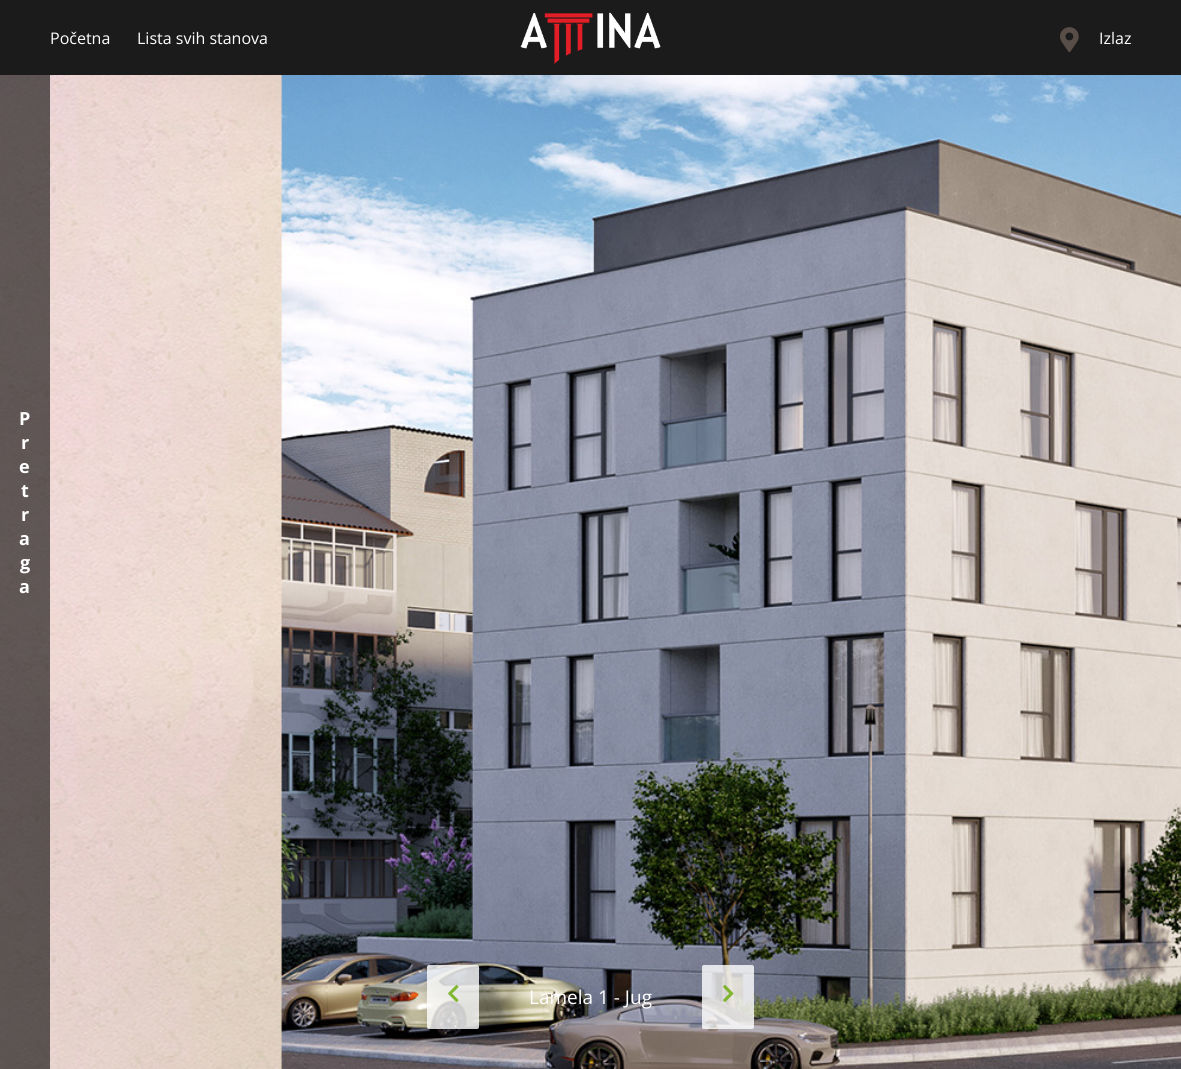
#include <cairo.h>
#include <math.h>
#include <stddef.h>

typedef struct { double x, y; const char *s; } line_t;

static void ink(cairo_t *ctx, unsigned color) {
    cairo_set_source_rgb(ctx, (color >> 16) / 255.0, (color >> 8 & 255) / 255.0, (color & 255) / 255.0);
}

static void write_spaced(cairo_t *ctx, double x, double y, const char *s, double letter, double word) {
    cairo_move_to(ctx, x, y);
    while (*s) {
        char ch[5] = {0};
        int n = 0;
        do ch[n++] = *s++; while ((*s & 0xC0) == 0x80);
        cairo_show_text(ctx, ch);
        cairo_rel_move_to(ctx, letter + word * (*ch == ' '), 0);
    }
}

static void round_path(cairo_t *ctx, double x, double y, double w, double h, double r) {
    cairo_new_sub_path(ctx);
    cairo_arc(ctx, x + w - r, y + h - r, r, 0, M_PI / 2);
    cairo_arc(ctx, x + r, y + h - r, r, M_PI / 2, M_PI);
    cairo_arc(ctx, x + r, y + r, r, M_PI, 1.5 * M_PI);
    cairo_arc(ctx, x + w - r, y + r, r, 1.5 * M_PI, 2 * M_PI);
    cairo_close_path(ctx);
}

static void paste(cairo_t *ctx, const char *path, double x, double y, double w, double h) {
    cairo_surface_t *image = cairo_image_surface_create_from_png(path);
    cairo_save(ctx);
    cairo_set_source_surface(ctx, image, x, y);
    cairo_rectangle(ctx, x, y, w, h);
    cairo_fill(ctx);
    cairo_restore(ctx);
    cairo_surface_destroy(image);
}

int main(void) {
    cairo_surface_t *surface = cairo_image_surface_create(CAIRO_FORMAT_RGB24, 1181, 1069);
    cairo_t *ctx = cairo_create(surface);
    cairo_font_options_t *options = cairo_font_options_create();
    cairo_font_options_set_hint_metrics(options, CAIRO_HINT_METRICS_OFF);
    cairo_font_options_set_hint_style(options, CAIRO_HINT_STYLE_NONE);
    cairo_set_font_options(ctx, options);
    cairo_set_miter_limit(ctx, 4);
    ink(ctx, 0xFFFFFF);
    cairo_paint(ctx);
    ink(ctx, 0x1B1B1B);
    cairo_rectangle(ctx, 0, 0, 1181, 75);
    cairo_fill(ctx);
    cairo_select_font_face(ctx, "Open Sans", CAIRO_FONT_SLANT_NORMAL, CAIRO_FONT_WEIGHT_NORMAL);
    cairo_set_font_size(ctx, 16);
    ink(ctx, 0xFFFFFF);
    cairo_move_to(ctx, 50, 44);
    cairo_show_text(ctx, "Početna");
    cairo_move_to(ctx, 137, 44);
    cairo_show_text(ctx, "Lista svih stanova");
    paste(ctx, "media/1.png", 520, 12, 141, 52);
    paste(ctx, "media/2.png", 1060, 27, 19, 26);
    cairo_move_to(ctx, 1099, 44);
    cairo_show_text(ctx, "Izlaz");
    paste(ctx, "media/3.png", 0, 75, 1181, 994);
    cairo_set_source_rgba(ctx, 0, 0, 0, 0.6);
    cairo_rectangle(ctx, 0, 75, 50, 994);
    cairo_fill(ctx);
    cairo_select_font_face(ctx, "Open Sans", CAIRO_FONT_SLANT_NORMAL, CAIRO_FONT_WEIGHT_BOLD);
    cairo_set_font_size(ctx, 18);
    ink(ctx, 0xFFFFFF);
    {
        static const line_t items[] = {
            {19, 425, "P"},
            {21, 449, "r"},
            {19, 473, "e"},
            {21, 497, "t"},
            {21, 521, "r"},
            {19, 545, "a"},
            {20, 569, "g"},
            {19, 593, "a"},
        };
        for (size_t i = 0; i < sizeof items / sizeof *items; i++) {
            write_spaced(ctx, items[i].x, items[i].y, items[i].s, 5, 0);
        }
    }
    cairo_set_source_rgba(ctx, 1, 1, 1, 0.8);
    round_path(ctx, 427, 965, 52, 64, 2);
    cairo_fill(ctx);
    paste(ctx, "media/4.png", 448, 985, 11, 17);
    cairo_select_font_face(ctx, "Open Sans", CAIRO_FONT_SLANT_NORMAL, CAIRO_FONT_WEIGHT_NORMAL);
    cairo_set_font_size(ctx, 19);
    ink(ctx, 0xFFFFFF);
    cairo_move_to(ctx, 529, 1004);
    cairo_show_text(ctx, "Lamela 1 - Jug");
    cairo_set_source_rgba(ctx, 1, 1, 1, 0.8);
    round_path(ctx, 702, 965, 52, 64, 2);
    cairo_fill(ctx);
    paste(ctx, "media/5.png", 723, 985, 11, 17);
    cairo_surface_write_to_png(surface, "image.png");
    cairo_font_options_destroy(options);
    cairo_destroy(ctx);
    cairo_surface_destroy(surface);
    return 0;
}
